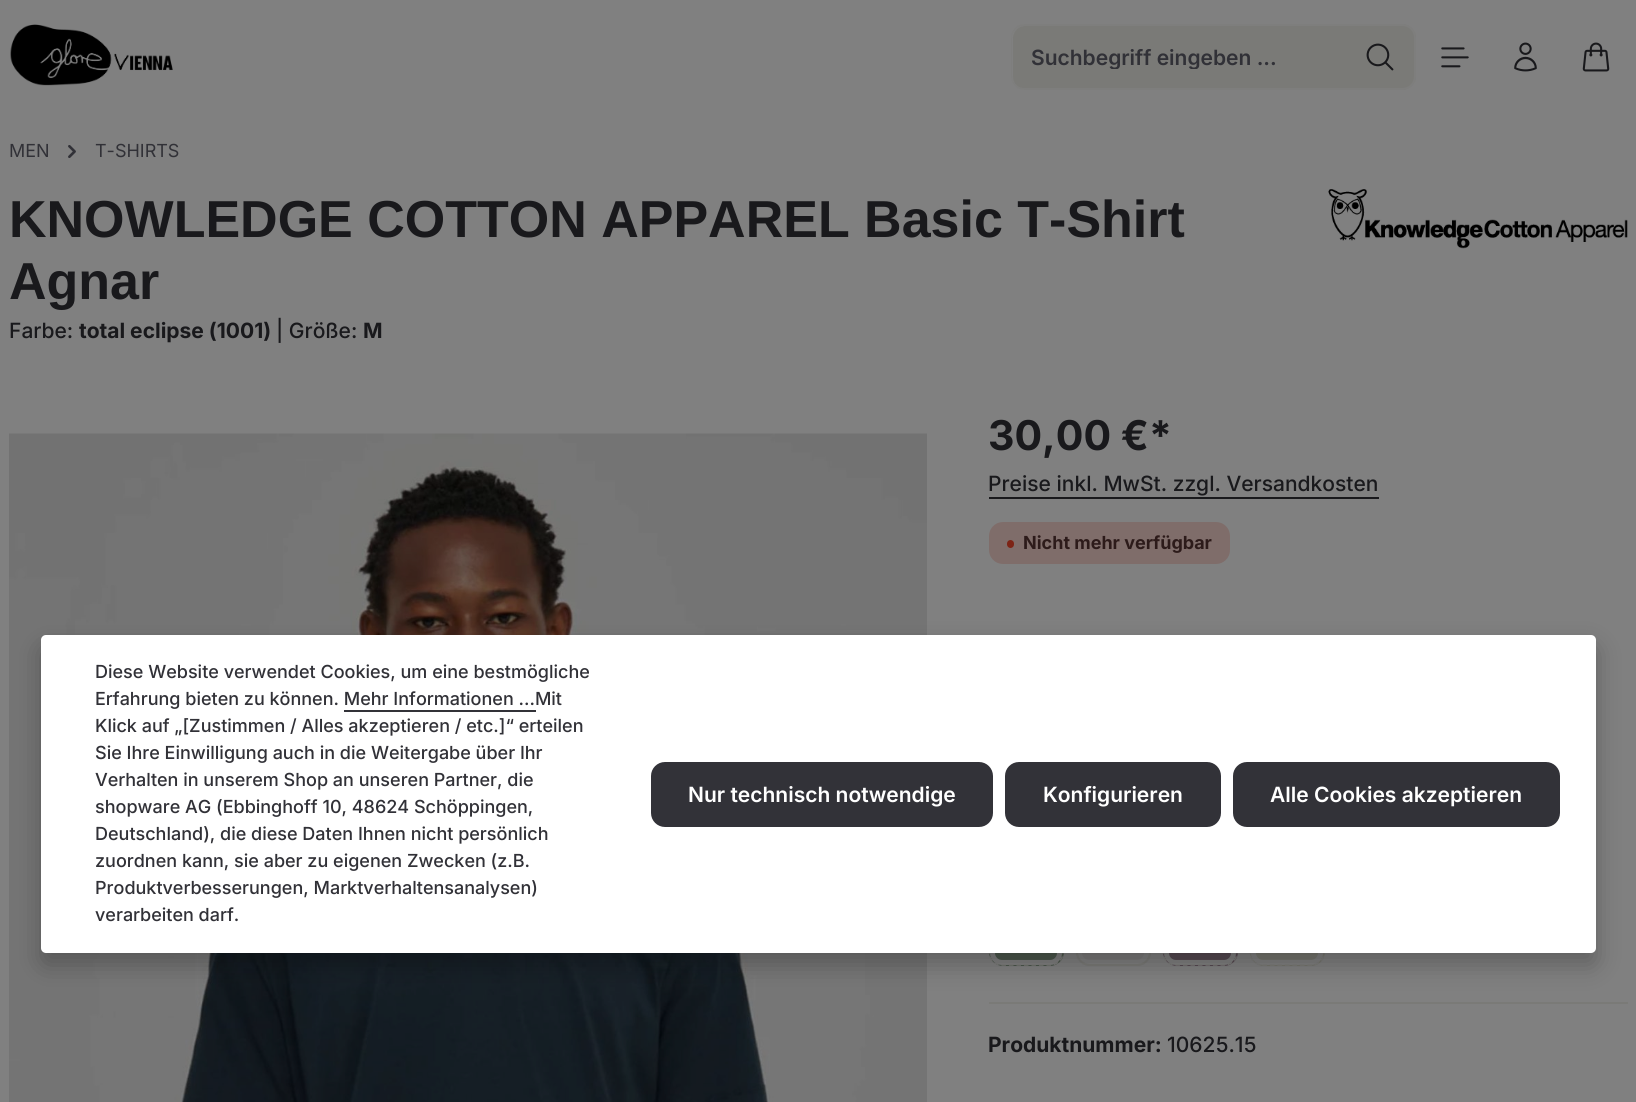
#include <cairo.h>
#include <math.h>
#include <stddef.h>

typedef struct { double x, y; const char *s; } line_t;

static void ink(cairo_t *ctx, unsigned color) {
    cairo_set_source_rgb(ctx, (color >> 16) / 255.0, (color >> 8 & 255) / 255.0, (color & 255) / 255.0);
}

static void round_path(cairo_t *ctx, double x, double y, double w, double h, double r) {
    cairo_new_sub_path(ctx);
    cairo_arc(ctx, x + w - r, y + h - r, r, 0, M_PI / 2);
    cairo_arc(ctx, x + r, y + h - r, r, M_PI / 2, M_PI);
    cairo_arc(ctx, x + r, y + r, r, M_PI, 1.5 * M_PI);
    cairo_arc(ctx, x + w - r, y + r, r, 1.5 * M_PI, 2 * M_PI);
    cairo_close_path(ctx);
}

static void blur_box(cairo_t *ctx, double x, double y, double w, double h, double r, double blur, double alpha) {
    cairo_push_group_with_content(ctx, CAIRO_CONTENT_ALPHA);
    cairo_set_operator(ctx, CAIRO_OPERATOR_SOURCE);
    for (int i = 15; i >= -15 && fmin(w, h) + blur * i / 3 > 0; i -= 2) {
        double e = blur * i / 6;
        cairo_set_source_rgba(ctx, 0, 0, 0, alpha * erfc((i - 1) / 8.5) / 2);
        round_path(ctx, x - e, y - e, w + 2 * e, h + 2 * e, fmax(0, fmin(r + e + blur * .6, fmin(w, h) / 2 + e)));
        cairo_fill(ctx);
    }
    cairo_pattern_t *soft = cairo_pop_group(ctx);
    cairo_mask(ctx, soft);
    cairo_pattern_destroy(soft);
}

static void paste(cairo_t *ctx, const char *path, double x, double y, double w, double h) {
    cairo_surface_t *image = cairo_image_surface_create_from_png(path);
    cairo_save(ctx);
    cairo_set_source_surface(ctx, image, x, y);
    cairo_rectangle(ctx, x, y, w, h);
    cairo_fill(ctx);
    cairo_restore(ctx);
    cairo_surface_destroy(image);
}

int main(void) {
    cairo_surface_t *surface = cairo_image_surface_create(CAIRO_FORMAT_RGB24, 1636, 1102);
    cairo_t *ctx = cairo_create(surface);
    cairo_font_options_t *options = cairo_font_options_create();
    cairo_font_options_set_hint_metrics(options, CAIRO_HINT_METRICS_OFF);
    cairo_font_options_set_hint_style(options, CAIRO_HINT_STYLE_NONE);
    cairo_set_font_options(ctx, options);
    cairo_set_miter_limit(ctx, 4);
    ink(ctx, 0x808080);
    cairo_paint(ctx);
    paste(ctx, "media/1.png", 10, 24, 163, 62);
    ink(ctx, 0x7A7A77);
    cairo_new_path(ctx);
    cairo_move_to(ctx, 1025, 26);
    cairo_line_to(ctx, 1347, 26);
    cairo_line_to(ctx, 1347, 89);
    cairo_line_to(ctx, 1025, 89);
    cairo_curve_to(ctx, 1018.5, 89, 1013, 83.5, 1013, 77);
    cairo_line_to(ctx, 1013, 38);
    cairo_curve_to(ctx, 1013, 31.5, 1018.5, 26, 1025, 26);
    cairo_close_path(ctx);
    cairo_fill(ctx);
    ink(ctx, 0x7E7E7D);
    cairo_set_fill_rule(ctx, CAIRO_FILL_RULE_EVEN_ODD);
    cairo_new_path(ctx);
    cairo_move_to(ctx, 1024, 24);
    cairo_line_to(ctx, 1347, 24);
    cairo_line_to(ctx, 1347, 90);
    cairo_line_to(ctx, 1024, 90);
    cairo_curve_to(ctx, 1017, 90, 1011, 84, 1011, 76);
    cairo_line_to(ctx, 1011, 38);
    cairo_curve_to(ctx, 1011, 30, 1017, 24, 1024, 24);
    cairo_close_path(ctx);
    cairo_move_to(ctx, 1024, 26);
    cairo_line_to(ctx, 1347, 26);
    cairo_line_to(ctx, 1347, 88);
    cairo_line_to(ctx, 1024, 88);
    cairo_curve_to(ctx, 1018, 88, 1012, 83, 1012, 76);
    cairo_line_to(ctx, 1012, 38);
    cairo_curve_to(ctx, 1012, 31, 1018, 26, 1024, 26);
    cairo_close_path(ctx);
    cairo_fill(ctx);
    cairo_save(ctx);
    cairo_set_fill_rule(ctx, CAIRO_FILL_RULE_WINDING);
    cairo_rectangle(ctx, 1031, 44, 298, 25);
    cairo_clip(ctx);
    cairo_select_font_face(ctx, "Inter SemiBold", CAIRO_FONT_SLANT_NORMAL, CAIRO_FONT_WEIGHT_NORMAL);
    cairo_set_font_size(ctx, 21);
    ink(ctx, 0x313137);
    cairo_move_to(ctx, 1031, 65);
    cairo_show_text(ctx, "Suchbegriff eingeben ...");
    cairo_restore(ctx);
    ink(ctx, 0x7A7A77);
    cairo_new_path(ctx);
    cairo_move_to(ctx, 1346, 24);
    cairo_line_to(ctx, 1402, 24);
    cairo_curve_to(ctx, 1409.5, 24, 1416, 30.5, 1416, 38);
    cairo_line_to(ctx, 1416, 76);
    cairo_curve_to(ctx, 1416, 83.5, 1409.5, 90, 1402, 90);
    cairo_line_to(ctx, 1346, 90);
    cairo_close_path(ctx);
    cairo_fill(ctx);
    ink(ctx, 0x7E7E7D);
    cairo_new_path(ctx);
    cairo_move_to(ctx, 1346, 24);
    cairo_line_to(ctx, 1402, 24);
    cairo_curve_to(ctx, 1410, 24, 1416, 30, 1416, 38);
    cairo_line_to(ctx, 1416, 76);
    cairo_curve_to(ctx, 1416, 84, 1410, 90, 1402, 90);
    cairo_line_to(ctx, 1346, 90);
    cairo_close_path(ctx);
    cairo_move_to(ctx, 1346, 26);
    cairo_line_to(ctx, 1402, 26);
    cairo_curve_to(ctx, 1409, 26, 1414, 31, 1414, 38);
    cairo_line_to(ctx, 1414, 76);
    cairo_curve_to(ctx, 1414, 83, 1409, 88, 1402, 88);
    cairo_line_to(ctx, 1346, 88);
    cairo_close_path(ctx);
    cairo_fill(ctx);
    paste(ctx, "media/2.png", 1366, 43, 28, 28);
    paste(ctx, "media/3.png", 1441, 47, 28, 21);
    paste(ctx, "media/4.png", 1514, 42, 23, 30);
    paste(ctx, "media/5.png", 1582, 42, 28, 30);
    cairo_select_font_face(ctx, "Inter", CAIRO_FONT_SLANT_NORMAL, CAIRO_FONT_WEIGHT_NORMAL);
    cairo_set_font_size(ctx, 18);
    ink(ctx, 0x313137);
    cairo_move_to(ctx, 9, 157);
    cairo_show_text(ctx, "MEN");
    paste(ctx, "media/6.png", 68, 145, 8, 13);
    cairo_move_to(ctx, 95, 157);
    cairo_show_text(ctx, "T-SHIRTS");
    cairo_select_font_face(ctx, "Liberation Sans", CAIRO_FONT_SLANT_NORMAL, CAIRO_FONT_WEIGHT_BOLD);
    cairo_set_font_size(ctx, 52);
    ink(ctx, 0x19191C);
    cairo_move_to(ctx, 9, 237);
    cairo_show_text(ctx, "KNOWLEDGE COTTON APPAREL Basic T-Shirt");
    cairo_move_to(ctx, 9, 299);
    cairo_show_text(ctx, "Agnar");
    cairo_select_font_face(ctx, "Inter Medium", CAIRO_FONT_SLANT_NORMAL, CAIRO_FONT_WEIGHT_NORMAL);
    cairo_set_font_size(ctx, 21);
    cairo_move_to(ctx, 9, 338);
    cairo_show_text(ctx, "Farbe:");
    cairo_select_font_face(ctx, "Inter", CAIRO_FONT_SLANT_NORMAL, CAIRO_FONT_WEIGHT_BOLD);
    cairo_move_to(ctx, 79, 338);
    cairo_show_text(ctx, "total eclipse (1001)");
    cairo_select_font_face(ctx, "Inter Medium", CAIRO_FONT_SLANT_NORMAL, CAIRO_FONT_WEIGHT_NORMAL);
    cairo_move_to(ctx, 276, 338);
    cairo_show_text(ctx, "| Größe:");
    cairo_select_font_face(ctx, "Inter", CAIRO_FONT_SLANT_NORMAL, CAIRO_FONT_WEIGHT_BOLD);
    cairo_move_to(ctx, 363, 338);
    cairo_show_text(ctx, "M");
    paste(ctx, "media/7.png", 1328, 189, 300, 60);
    paste(ctx, "media/8.png", 9, 433, 918, 669);
    cairo_set_font_size(ctx, 41);
    cairo_move_to(ctx, 988, 450);
    cairo_show_text(ctx, "30,00 €*");
    cairo_select_font_face(ctx, "Inter Medium", CAIRO_FONT_SLANT_NORMAL, CAIRO_FONT_WEIGHT_NORMAL);
    cairo_set_font_size(ctx, 21);
    cairo_move_to(ctx, 988, 491);
    cairo_show_text(ctx, "Preise inkl. MwSt. zzgl. Versandkosten");
    cairo_rectangle(ctx, 989, 497, 390, 2);
    cairo_fill(ctx);
    cairo_select_font_face(ctx, "Inter", CAIRO_FONT_SLANT_NORMAL, CAIRO_FONT_WEIGHT_BOLD);
    cairo_set_font_size(ctx, 18);
    cairo_move_to(ctx, 1023, 549);
    cairo_show_text(ctx, "Nicht mehr verfügbar");
    cairo_set_source_rgba(ctx, 0.49, 0.141, 0.086, 0.2);
    round_path(ctx, 989, 522, 241, 42, 14);
    cairo_fill(ctx);
    ink(ctx, 0x7D2416);
    round_path(ctx, 1007, 540, 7, 8, 3.5);
    cairo_fill(ctx);
    ink(ctx, 0x4C574C);
    round_path(ctx, 989, 891, 75, 75, 14);
    cairo_fill(ctx);
    round_path(ctx, 992.5, 895.5, 67, 67, 9.5);
    ink(ctx, 0x808080);
    cairo_set_line_width(ctx, 5);
    cairo_stroke(ctx);
    cairo_new_path(ctx);
    cairo_move_to(ctx, 1002, 892);
    cairo_line_to(ctx, 1050, 892);
    cairo_curve_to(ctx, 1057, 892, 1063, 897.5, 1063, 904.5);
    cairo_line_to(ctx, 1063, 952.5);
    cairo_curve_to(ctx, 1063, 959.5, 1057, 965, 1050, 965);
    cairo_line_to(ctx, 1002, 965);
    cairo_curve_to(ctx, 995, 965, 989, 959.5, 989, 952.5);
    cairo_line_to(ctx, 989, 904.5);
    cairo_curve_to(ctx, 989, 897.5, 995, 892, 1002, 892);
    cairo_close_path(ctx);
    ink(ctx, 0x7D7D7B);
    cairo_set_line_width(ctx, 1.5);
    cairo_set_dash(ctx, (double[]){4.5, 3}, 2, 0);
    cairo_stroke(ctx);
    ink(ctx, 0x7A7979);
    round_path(ctx, 1076, 891, 75, 75, 14);
    cairo_fill(ctx);
    round_path(ctx, 1079.5, 895.5, 67, 67, 9.5);
    ink(ctx, 0x808080);
    cairo_set_line_width(ctx, 5);
    cairo_set_dash(ctx, NULL, 0, 0);
    cairo_stroke(ctx);
    round_path(ctx, 1077, 892, 73, 73, 13);
    ink(ctx, 0x7A7A77);
    cairo_set_line_width(ctx, 2);
    cairo_stroke(ctx);
    ink(ctx, 0x564951);
    round_path(ctx, 1163, 891, 75, 75, 14);
    cairo_fill(ctx);
    round_path(ctx, 1166.5, 895.5, 67, 67, 9.5);
    ink(ctx, 0x808080);
    cairo_set_line_width(ctx, 5);
    cairo_stroke(ctx);
    cairo_new_path(ctx);
    cairo_move_to(ctx, 1176, 892);
    cairo_line_to(ctx, 1224, 892);
    cairo_curve_to(ctx, 1231, 892, 1237, 897.5, 1237, 904.5);
    cairo_line_to(ctx, 1237, 952.5);
    cairo_curve_to(ctx, 1237, 959.5, 1231, 965, 1224, 965);
    cairo_line_to(ctx, 1176, 965);
    cairo_curve_to(ctx, 1169, 965, 1163, 959.5, 1163, 952.5);
    cairo_line_to(ctx, 1163, 904.5);
    cairo_curve_to(ctx, 1163, 897.5, 1169, 892, 1176, 892);
    cairo_close_path(ctx);
    ink(ctx, 0x7D7D7B);
    cairo_set_line_width(ctx, 1.5);
    cairo_set_dash(ctx, (double[]){4.5, 3}, 2, 0);
    cairo_stroke(ctx);
    ink(ctx, 0x76766E);
    round_path(ctx, 1250, 891, 75, 75, 14);
    cairo_fill(ctx);
    round_path(ctx, 1253.5, 895.5, 67, 67, 9.5);
    ink(ctx, 0x808080);
    cairo_set_line_width(ctx, 5);
    cairo_set_dash(ctx, NULL, 0, 0);
    cairo_stroke(ctx);
    cairo_new_path(ctx);
    cairo_move_to(ctx, 1263, 892);
    cairo_line_to(ctx, 1311, 892);
    cairo_curve_to(ctx, 1318, 892, 1324, 897.5, 1324, 904.5);
    cairo_line_to(ctx, 1324, 952.5);
    cairo_curve_to(ctx, 1324, 959.5, 1318, 965, 1311, 965);
    cairo_line_to(ctx, 1263, 965);
    cairo_curve_to(ctx, 1256, 965, 1250, 959.5, 1250, 952.5);
    cairo_line_to(ctx, 1250, 904.5);
    cairo_curve_to(ctx, 1250, 897.5, 1256, 892, 1263, 892);
    cairo_close_path(ctx);
    ink(ctx, 0x7D7D7B);
    cairo_set_line_width(ctx, 1.5);
    cairo_set_dash(ctx, (double[]){4.5, 3}, 2, 0);
    cairo_stroke(ctx);
    ink(ctx, 0x7A7A77);
    cairo_rectangle(ctx, 989, 1002, 639, 2);
    cairo_fill(ctx);
    cairo_set_font_size(ctx, 21);
    ink(ctx, 0x19191C);
    cairo_move_to(ctx, 988, 1052);
    cairo_show_text(ctx, "Produktnummer:");
    cairo_select_font_face(ctx, "Inter Medium", CAIRO_FONT_SLANT_NORMAL, CAIRO_FONT_WEIGHT_NORMAL);
    cairo_move_to(ctx, 1167, 1052);
    cairo_show_text(ctx, "10625.15");
    ink(ctx, 0x000000);
    blur_box(ctx, 41, 647, 1555, 318, 5, 12, 0.25);
    ink(ctx, 0xFFFFFF);
    round_path(ctx, 41, 635, 1555, 318, 5);
    cairo_fill(ctx);
    cairo_set_font_size(ctx, 18);
    ink(ctx, 0x313137);
    cairo_move_to(ctx, 95, 678);
    cairo_show_text(ctx, "Diese Website verwendet Cookies, um eine bestmögliche");
    cairo_move_to(ctx, 95, 705);
    cairo_show_text(ctx, "Erfahrung bieten zu können. Mehr Informationen ...Mit");
    ink(ctx, 0x323238);
    cairo_rectangle(ctx, 344, 710, 192, 2);
    cairo_fill(ctx);
    ink(ctx, 0x313137);
    {
        static const line_t items[] = {
            {95, 732, "Klick auf „[Zustimmen / Alles akzeptieren / etc.]“ erteilen"},
            {95, 759, "Sie Ihre Einwilligung auch in die Weitergabe über Ihr"},
            {95, 786, "Verhalten in unserem Shop an unseren Partner, die"},
            {95, 813, "shopware AG (Ebbinghoff 10, 48624 Schöppingen,"},
            {95, 840, "Deutschland), die diese Daten Ihnen nicht persönlich"},
            {95, 867, "zuordnen kann, sie aber zu eigenen Zwecken (z.B."},
            {95, 894, "Produktverbesserungen, Marktverhaltensanalysen)"},
            {95, 921, "verarbeiten darf."},
        };
        for (size_t i = 0; i < sizeof items / sizeof *items; i++) {
            cairo_move_to(ctx, items[i].x, items[i].y);
            cairo_show_text(ctx, items[i].s);
        }
    }
    ink(ctx, 0x323238);
    round_path(ctx, 652, 763, 340, 63, 13);
    cairo_fill_preserve(ctx);
    cairo_set_line_width(ctx, 2);
    cairo_set_dash(ctx, NULL, 0, 0);
    cairo_stroke(ctx);
    cairo_select_font_face(ctx, "Inter SemiBold", CAIRO_FONT_SLANT_NORMAL, CAIRO_FONT_WEIGHT_NORMAL);
    cairo_set_font_size(ctx, 21);
    ink(ctx, 0xFFFFFF);
    cairo_move_to(ctx, 688, 802);
    cairo_show_text(ctx, "Nur technisch notwendige");
    ink(ctx, 0x323238);
    round_path(ctx, 1006, 763, 214, 63, 13);
    cairo_fill_preserve(ctx);
    cairo_stroke(ctx);
    ink(ctx, 0xFFFFFF);
    cairo_move_to(ctx, 1043, 802);
    cairo_show_text(ctx, "Konfigurieren");
    ink(ctx, 0x323238);
    round_path(ctx, 1234, 763, 325, 63, 13);
    cairo_fill_preserve(ctx);
    cairo_stroke(ctx);
    ink(ctx, 0xFFFFFF);
    cairo_move_to(ctx, 1270, 802);
    cairo_show_text(ctx, "Alle Cookies akzeptieren");
    cairo_surface_write_to_png(surface, "image.png");
    cairo_font_options_destroy(options);
    cairo_destroy(ctx);
    cairo_surface_destroy(surface);
    return 0;
}
